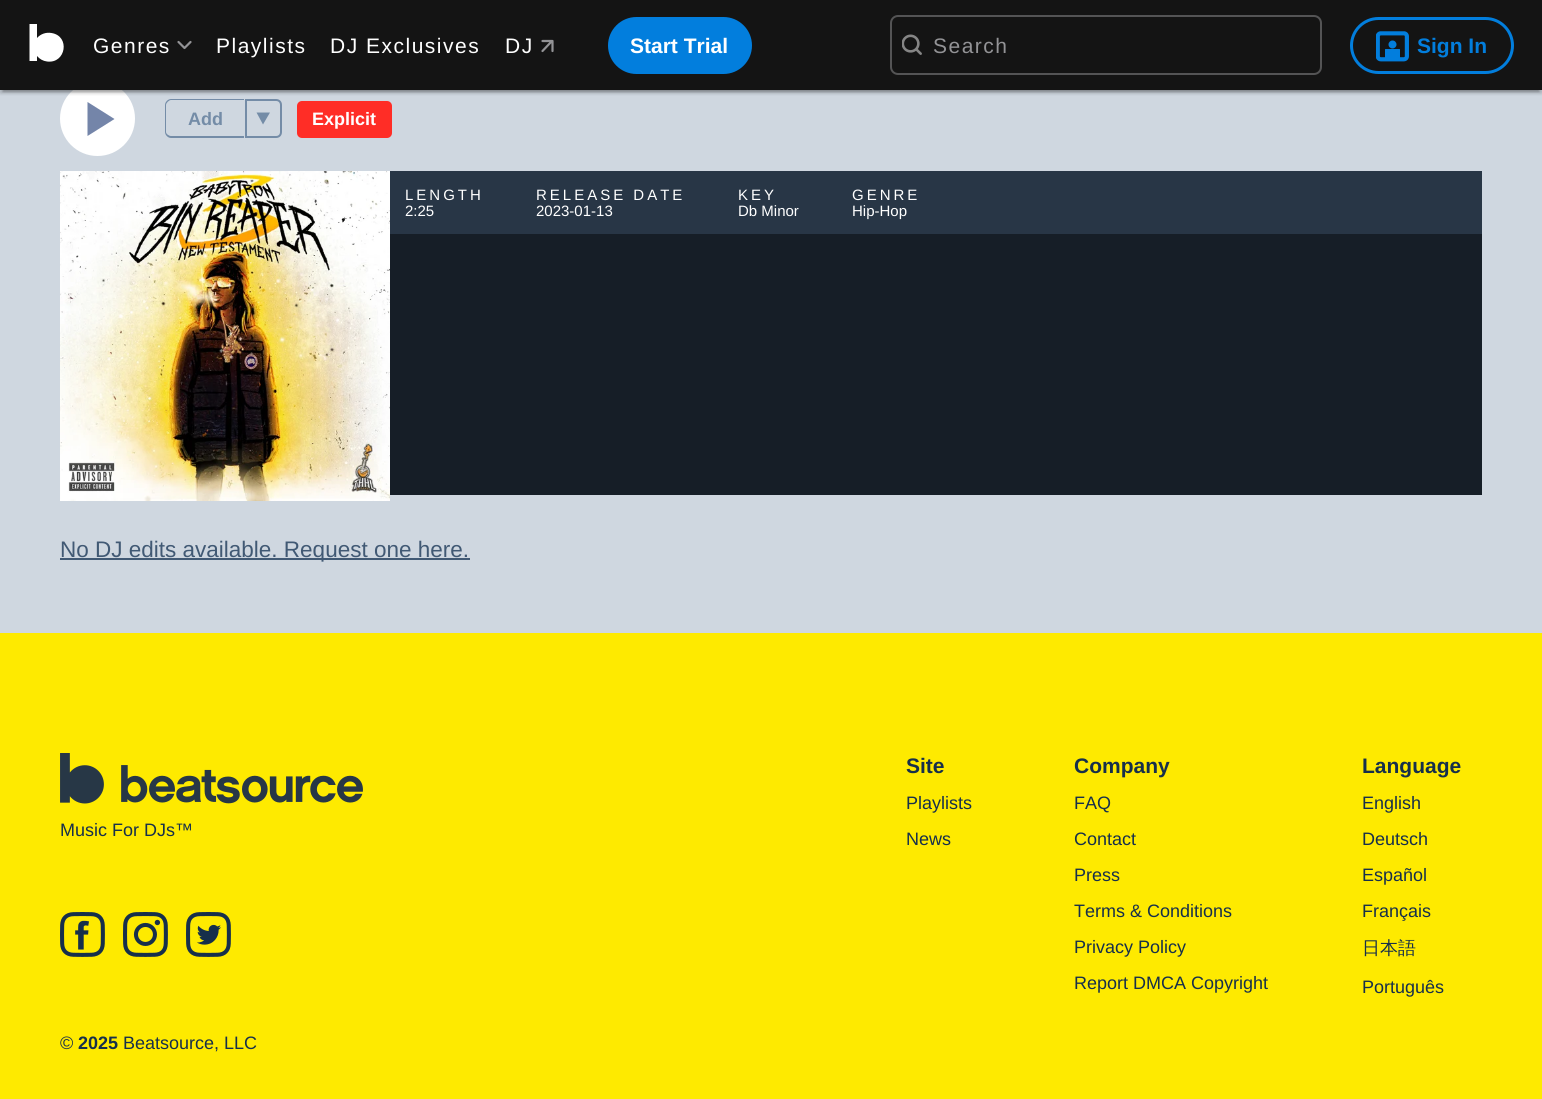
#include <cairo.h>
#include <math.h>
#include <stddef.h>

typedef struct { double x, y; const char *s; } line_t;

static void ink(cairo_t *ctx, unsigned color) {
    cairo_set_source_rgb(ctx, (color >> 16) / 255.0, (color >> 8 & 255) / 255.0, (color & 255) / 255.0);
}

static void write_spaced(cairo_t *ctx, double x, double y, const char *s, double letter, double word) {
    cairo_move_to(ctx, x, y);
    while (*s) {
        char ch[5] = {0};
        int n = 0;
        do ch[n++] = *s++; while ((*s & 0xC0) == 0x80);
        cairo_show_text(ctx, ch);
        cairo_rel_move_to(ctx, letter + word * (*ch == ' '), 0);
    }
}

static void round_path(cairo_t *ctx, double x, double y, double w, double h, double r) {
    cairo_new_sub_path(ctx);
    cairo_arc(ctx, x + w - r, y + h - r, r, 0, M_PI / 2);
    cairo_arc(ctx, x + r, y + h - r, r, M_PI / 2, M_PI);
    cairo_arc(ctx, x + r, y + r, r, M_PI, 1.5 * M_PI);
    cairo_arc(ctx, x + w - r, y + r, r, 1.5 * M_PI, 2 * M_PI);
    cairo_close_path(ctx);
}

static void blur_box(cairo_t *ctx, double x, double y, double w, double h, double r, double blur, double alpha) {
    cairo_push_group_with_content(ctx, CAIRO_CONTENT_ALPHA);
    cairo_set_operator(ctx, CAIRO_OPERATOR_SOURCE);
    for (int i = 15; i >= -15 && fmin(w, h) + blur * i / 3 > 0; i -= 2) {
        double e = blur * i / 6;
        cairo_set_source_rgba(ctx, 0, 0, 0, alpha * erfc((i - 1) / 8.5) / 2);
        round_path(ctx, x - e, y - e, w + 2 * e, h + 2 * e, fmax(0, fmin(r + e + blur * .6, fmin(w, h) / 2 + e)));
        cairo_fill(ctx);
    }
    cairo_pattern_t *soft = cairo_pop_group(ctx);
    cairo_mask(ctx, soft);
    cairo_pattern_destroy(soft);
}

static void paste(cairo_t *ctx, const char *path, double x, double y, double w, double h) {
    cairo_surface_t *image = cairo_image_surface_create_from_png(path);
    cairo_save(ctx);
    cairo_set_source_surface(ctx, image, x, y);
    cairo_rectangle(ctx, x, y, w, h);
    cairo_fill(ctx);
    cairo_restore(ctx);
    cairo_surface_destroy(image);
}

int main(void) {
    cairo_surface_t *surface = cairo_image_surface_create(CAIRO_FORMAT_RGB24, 1542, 1099);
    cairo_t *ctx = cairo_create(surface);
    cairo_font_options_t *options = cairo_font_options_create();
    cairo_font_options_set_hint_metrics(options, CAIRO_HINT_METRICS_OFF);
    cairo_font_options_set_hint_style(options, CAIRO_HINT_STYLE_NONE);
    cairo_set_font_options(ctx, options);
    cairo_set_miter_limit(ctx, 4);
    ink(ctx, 0xCFD7E0);
    cairo_paint(ctx);
    ink(ctx, 0xFFFFFF);
    cairo_arc(ctx, 97.5, 118.5, 37.5, 0, 2 * M_PI);
    cairo_fill(ctx);
    ink(ctx, 0x141414);
    cairo_rectangle(ctx, 0, 0, 1542, 90);
    cairo_fill(ctx);
    ink(ctx, 0xFFFFFF);
    cairo_new_path(ctx);
    cairo_move_to(ctx, 37, 61);
    cairo_line_to(ctx, 29.5, 61);
    cairo_line_to(ctx, 29.5, 24);
    cairo_line_to(ctx, 37, 24);
    cairo_line_to(ctx, 37, 38);
    cairo_curve_to(ctx, 40.5, 34, 46, 32, 51.5, 33);
    cairo_curve_to(ctx, 70.5, 36, 66, 64, 47, 61.5);
    cairo_curve_to(ctx, 43, 61, 39.5, 59, 37, 56);
    cairo_close_path(ctx);
    cairo_fill(ctx);
    cairo_new_path(ctx);
    cairo_move_to(ctx, 178.5, 42);
    cairo_line_to(ctx, 184.5, 48);
    cairo_line_to(ctx, 190.5, 42);
    ink(ctx, 0x939396);
    cairo_set_line_width(ctx, 2.2);
    cairo_set_line_cap(ctx, CAIRO_LINE_CAP_ROUND);
    cairo_set_line_join(ctx, CAIRO_LINE_JOIN_ROUND);
    cairo_stroke(ctx);
    cairo_new_path(ctx);
    cairo_move_to(ctx, 552.5, 51);
    cairo_line_to(ctx, 552.5, 41);
    cairo_line_to(ctx, 542.5, 41);
    cairo_move_to(ctx, 542.5, 51);
    cairo_line_to(ctx, 551.5, 41.5);
    cairo_close_path(ctx);
    cairo_stroke(ctx);
    ink(ctx, 0x027EDD);
    round_path(ctx, 608, 17, 144, 57, 28.5);
    cairo_fill(ctx);
    round_path(ctx, 1351.5, 18.5, 161, 54, 27);
    cairo_set_line_width(ctx, 3);
    cairo_set_line_cap(ctx, CAIRO_LINE_CAP_BUTT);
    cairo_set_line_join(ctx, CAIRO_LINE_JOIN_MITER);
    cairo_stroke(ctx);
    paste(ctx, "media/2.png", 1376, 31, 33, 31);
    ink(ctx, 0x7485A9);
    cairo_new_path(ctx);
    cairo_move_to(ctx, 87.5, 136);
    cairo_line_to(ctx, 87.5, 102);
    cairo_line_to(ctx, 114.5, 119);
    cairo_close_path(ctx);
    cairo_fill(ctx);
    ink(ctx, 0x748CA7);
    cairo_set_fill_rule(ctx, CAIRO_FILL_RULE_EVEN_ODD);
    cairo_new_path(ctx);
    cairo_move_to(ctx, 171, 99);
    cairo_line_to(ctx, 244, 99);
    cairo_line_to(ctx, 244, 138);
    cairo_line_to(ctx, 171, 138);
    cairo_curve_to(ctx, 168, 138, 165, 135, 165, 132);
    cairo_line_to(ctx, 165, 105);
    cairo_curve_to(ctx, 165, 102, 168, 99, 171, 99);
    cairo_close_path(ctx);
    cairo_move_to(ctx, 171, 100);
    cairo_line_to(ctx, 244, 100);
    cairo_line_to(ctx, 244, 136);
    cairo_line_to(ctx, 171, 136);
    cairo_curve_to(ctx, 169, 136, 166, 134, 166, 132);
    cairo_line_to(ctx, 166, 105);
    cairo_curve_to(ctx, 166, 103, 169, 100, 171, 100);
    cairo_close_path(ctx);
    cairo_fill(ctx);
    cairo_new_path(ctx);
    cairo_move_to(ctx, 246, 100);
    cairo_line_to(ctx, 276, 100);
    cairo_curve_to(ctx, 279, 100, 281, 102, 281, 105);
    cairo_line_to(ctx, 281, 132);
    cairo_curve_to(ctx, 281, 135, 279, 137, 276, 137);
    cairo_line_to(ctx, 246, 137);
    cairo_close_path(ctx);
    cairo_set_line_width(ctx, 2);
    cairo_stroke(ctx);
    ink(ctx, 0xFF2D26);
    round_path(ctx, 297, 101, 95, 37, 5);
    cairo_fill(ctx);
    cairo_save(ctx);
    cairo_set_fill_rule(ctx, CAIRO_FILL_RULE_WINDING);
    cairo_rectangle(ctx, 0, 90, 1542, 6);
    cairo_clip(ctx);
    ink(ctx, 0x000000);
    blur_box(ctx, 0, 2, 1542, 90, 0, 4, 0.12);
    cairo_restore(ctx);
    cairo_save(ctx);
    cairo_set_fill_rule(ctx, CAIRO_FILL_RULE_WINDING);
    cairo_rectangle(ctx, 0, 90, 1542, 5);
    cairo_clip(ctx);
    ink(ctx, 0x000000);
    blur_box(ctx, 0, 3, 1542, 90, 0, 1.5, 0.14);
    cairo_restore(ctx);
    cairo_save(ctx);
    cairo_set_fill_rule(ctx, CAIRO_FILL_RULE_WINDING);
    cairo_rectangle(ctx, 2, 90, 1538, 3);
    cairo_clip(ctx);
    ink(ctx, 0x000000);
    blur_box(ctx, 3, 8, 1536, 84, 0, 1, 0.2);
    cairo_restore(ctx);
    cairo_select_font_face(ctx, "Liberation Sans", CAIRO_FONT_SLANT_NORMAL, CAIRO_FONT_WEIGHT_NORMAL);
    cairo_set_font_size(ctx, 21);
    ink(ctx, 0xFFFFFF);
    {
        static const line_t items[] = {
            {93, 53, "Genres"},
            {216, 53, "Playlists"},
            {330, 53, "DJ Exclusives"},
            {505, 53, "DJ"},
        };
        for (size_t i = 0; i < sizeof items / sizeof *items; i++) {
            write_spaced(ctx, items[i].x, items[i].y, items[i].s, 1.5, 0);
        }
    }
    cairo_select_font_face(ctx, "Liberation Sans", CAIRO_FONT_SLANT_NORMAL, CAIRO_FONT_WEIGHT_BOLD);
    cairo_move_to(ctx, 630, 53);
    cairo_show_text(ctx, "Start Trial");
    round_path(ctx, 891, 16, 430, 58, 7);
    ink(ctx, 0x545455);
    cairo_stroke(ctx);
    paste(ctx, "media/1.png", 902, 34, 20, 21);
    cairo_select_font_face(ctx, "Liberation Sans", CAIRO_FONT_SLANT_NORMAL, CAIRO_FONT_WEIGHT_NORMAL);
    ink(ctx, 0x939396);
    write_spaced(ctx, 933, 53, "Search", 1.5, 0);
    cairo_select_font_face(ctx, "Liberation Sans", CAIRO_FONT_SLANT_NORMAL, CAIRO_FONT_WEIGHT_BOLD);
    ink(ctx, 0x027EDD);
    cairo_move_to(ctx, 1417, 53);
    cairo_show_text(ctx, "Sign In");
    cairo_set_font_size(ctx, 18);
    ink(ctx, 0x748CA7);
    cairo_move_to(ctx, 188, 125);
    cairo_show_text(ctx, "Add");
    cairo_set_fill_rule(ctx, CAIRO_FILL_RULE_WINDING);
    cairo_new_path(ctx);
    cairo_move_to(ctx, 256.5, 112.5);
    cairo_line_to(ctx, 270, 112.5);
    cairo_line_to(ctx, 263, 124.5);
    cairo_close_path(ctx);
    cairo_fill(ctx);
    ink(ctx, 0xFFFFFF);
    cairo_move_to(ctx, 312, 125);
    cairo_show_text(ctx, "Explicit");
    paste(ctx, "media/3.png", 60, 171, 330, 330);
    ink(ctx, 0x283646);
    cairo_rectangle(ctx, 390, 171, 1092, 63);
    cairo_fill(ctx);
    cairo_select_font_face(ctx, "Liberation Sans", CAIRO_FONT_SLANT_NORMAL, CAIRO_FONT_WEIGHT_NORMAL);
    cairo_set_font_size(ctx, 15);
    ink(ctx, 0xFFFFFF);
    write_spaced(ctx, 405, 200, "LENGTH", 3, 0);
    cairo_move_to(ctx, 405, 216);
    cairo_show_text(ctx, "2:25");
    write_spaced(ctx, 536, 200, "RELEASE DATE", 3, 0);
    cairo_move_to(ctx, 536, 216);
    cairo_show_text(ctx, "2023-01-13");
    write_spaced(ctx, 738, 200, "KEY", 3, 0);
    cairo_move_to(ctx, 738, 216);
    cairo_show_text(ctx, "Db Minor");
    write_spaced(ctx, 852, 200, "GENRE", 3, 0);
    cairo_move_to(ctx, 852, 216);
    cairo_show_text(ctx, "Hip-Hop");
    ink(ctx, 0x161E27);
    cairo_rectangle(ctx, 390, 234, 1092, 261);
    cairo_fill(ctx);
    ink(ctx, 0x415974);
    cairo_rectangle(ctx, 60, 558, 410, 2);
    cairo_fill(ctx);
    cairo_set_font_size(ctx, 22.5);
    cairo_move_to(ctx, 60, 557);
    cairo_show_text(ctx, "No DJ edits available. Request one here.");
    ink(ctx, 0xFEEA00);
    cairo_rectangle(ctx, 0, 633, 1542, 466);
    cairo_fill(ctx);
    paste(ctx, "media/4.png", 60, 753, 303, 51);
    cairo_set_font_size(ctx, 18);
    ink(ctx, 0x162F4B);
    cairo_move_to(ctx, 60, 836);
    cairo_show_text(ctx, "Music For DJs™");
    paste(ctx, "media/5.png", 60, 912, 45, 45);
    paste(ctx, "media/6.png", 123, 912, 45, 45);
    paste(ctx, "media/7.png", 186, 912, 45, 45);
    cairo_move_to(ctx, 60, 1049);
    cairo_show_text(ctx, "©");
    cairo_select_font_face(ctx, "Liberation Sans", CAIRO_FONT_SLANT_NORMAL, CAIRO_FONT_WEIGHT_BOLD);
    cairo_move_to(ctx, 78, 1049);
    cairo_show_text(ctx, "2025");
    cairo_select_font_face(ctx, "Liberation Sans", CAIRO_FONT_SLANT_NORMAL, CAIRO_FONT_WEIGHT_NORMAL);
    cairo_move_to(ctx, 123, 1049);
    cairo_show_text(ctx, "Beatsource, LLC");
    cairo_select_font_face(ctx, "Liberation Sans", CAIRO_FONT_SLANT_NORMAL, CAIRO_FONT_WEIGHT_BOLD);
    cairo_set_font_size(ctx, 21);
    cairo_move_to(ctx, 906, 773);
    cairo_show_text(ctx, "Site");
    cairo_select_font_face(ctx, "Liberation Sans", CAIRO_FONT_SLANT_NORMAL, CAIRO_FONT_WEIGHT_NORMAL);
    cairo_set_font_size(ctx, 18);
    cairo_move_to(ctx, 906, 809);
    cairo_show_text(ctx, "Playlists");
    cairo_move_to(ctx, 906, 845);
    cairo_show_text(ctx, "News");
    cairo_select_font_face(ctx, "Liberation Sans", CAIRO_FONT_SLANT_NORMAL, CAIRO_FONT_WEIGHT_BOLD);
    cairo_set_font_size(ctx, 21);
    cairo_move_to(ctx, 1074, 773);
    cairo_show_text(ctx, "Company");
    cairo_select_font_face(ctx, "Liberation Sans", CAIRO_FONT_SLANT_NORMAL, CAIRO_FONT_WEIGHT_NORMAL);
    cairo_set_font_size(ctx, 18);
    {
        static const line_t items[] = {
            {1074, 809, "FAQ"},
            {1074, 845, "Contact"},
            {1074, 881, "Press"},
            {1074, 917, "Terms & Conditions"},
            {1074, 953, "Privacy Policy"},
            {1074, 989, "Report DMCA Copyright"},
        };
        for (size_t i = 0; i < sizeof items / sizeof *items; i++) {
            cairo_move_to(ctx, items[i].x, items[i].y);
            cairo_show_text(ctx, items[i].s);
        }
    }
    cairo_select_font_face(ctx, "Liberation Sans", CAIRO_FONT_SLANT_NORMAL, CAIRO_FONT_WEIGHT_BOLD);
    cairo_set_font_size(ctx, 21);
    cairo_move_to(ctx, 1362, 773);
    cairo_show_text(ctx, "Language");
    cairo_select_font_face(ctx, "Liberation Sans", CAIRO_FONT_SLANT_NORMAL, CAIRO_FONT_WEIGHT_NORMAL);
    cairo_set_font_size(ctx, 18);
    {
        static const line_t items[] = {
            {1362, 809, "English"},
            {1362, 845, "Deutsch"},
            {1362, 881, "Español"},
            {1362, 917, "Français"},
        };
        for (size_t i = 0; i < sizeof items / sizeof *items; i++) {
            cairo_move_to(ctx, items[i].x, items[i].y);
            cairo_show_text(ctx, items[i].s);
        }
    }
    cairo_select_font_face(ctx, "WenQuanYi Zen Hei Medium", CAIRO_FONT_SLANT_NORMAL, CAIRO_FONT_WEIGHT_NORMAL);
    cairo_move_to(ctx, 1362, 954);
    cairo_show_text(ctx, "日本語");
    cairo_select_font_face(ctx, "Liberation Sans", CAIRO_FONT_SLANT_NORMAL, CAIRO_FONT_WEIGHT_NORMAL);
    cairo_move_to(ctx, 1362, 993);
    cairo_show_text(ctx, "Português");
    cairo_surface_write_to_png(surface, "image.png");
    cairo_font_options_destroy(options);
    cairo_destroy(ctx);
    cairo_surface_destroy(surface);
    return 0;
}
